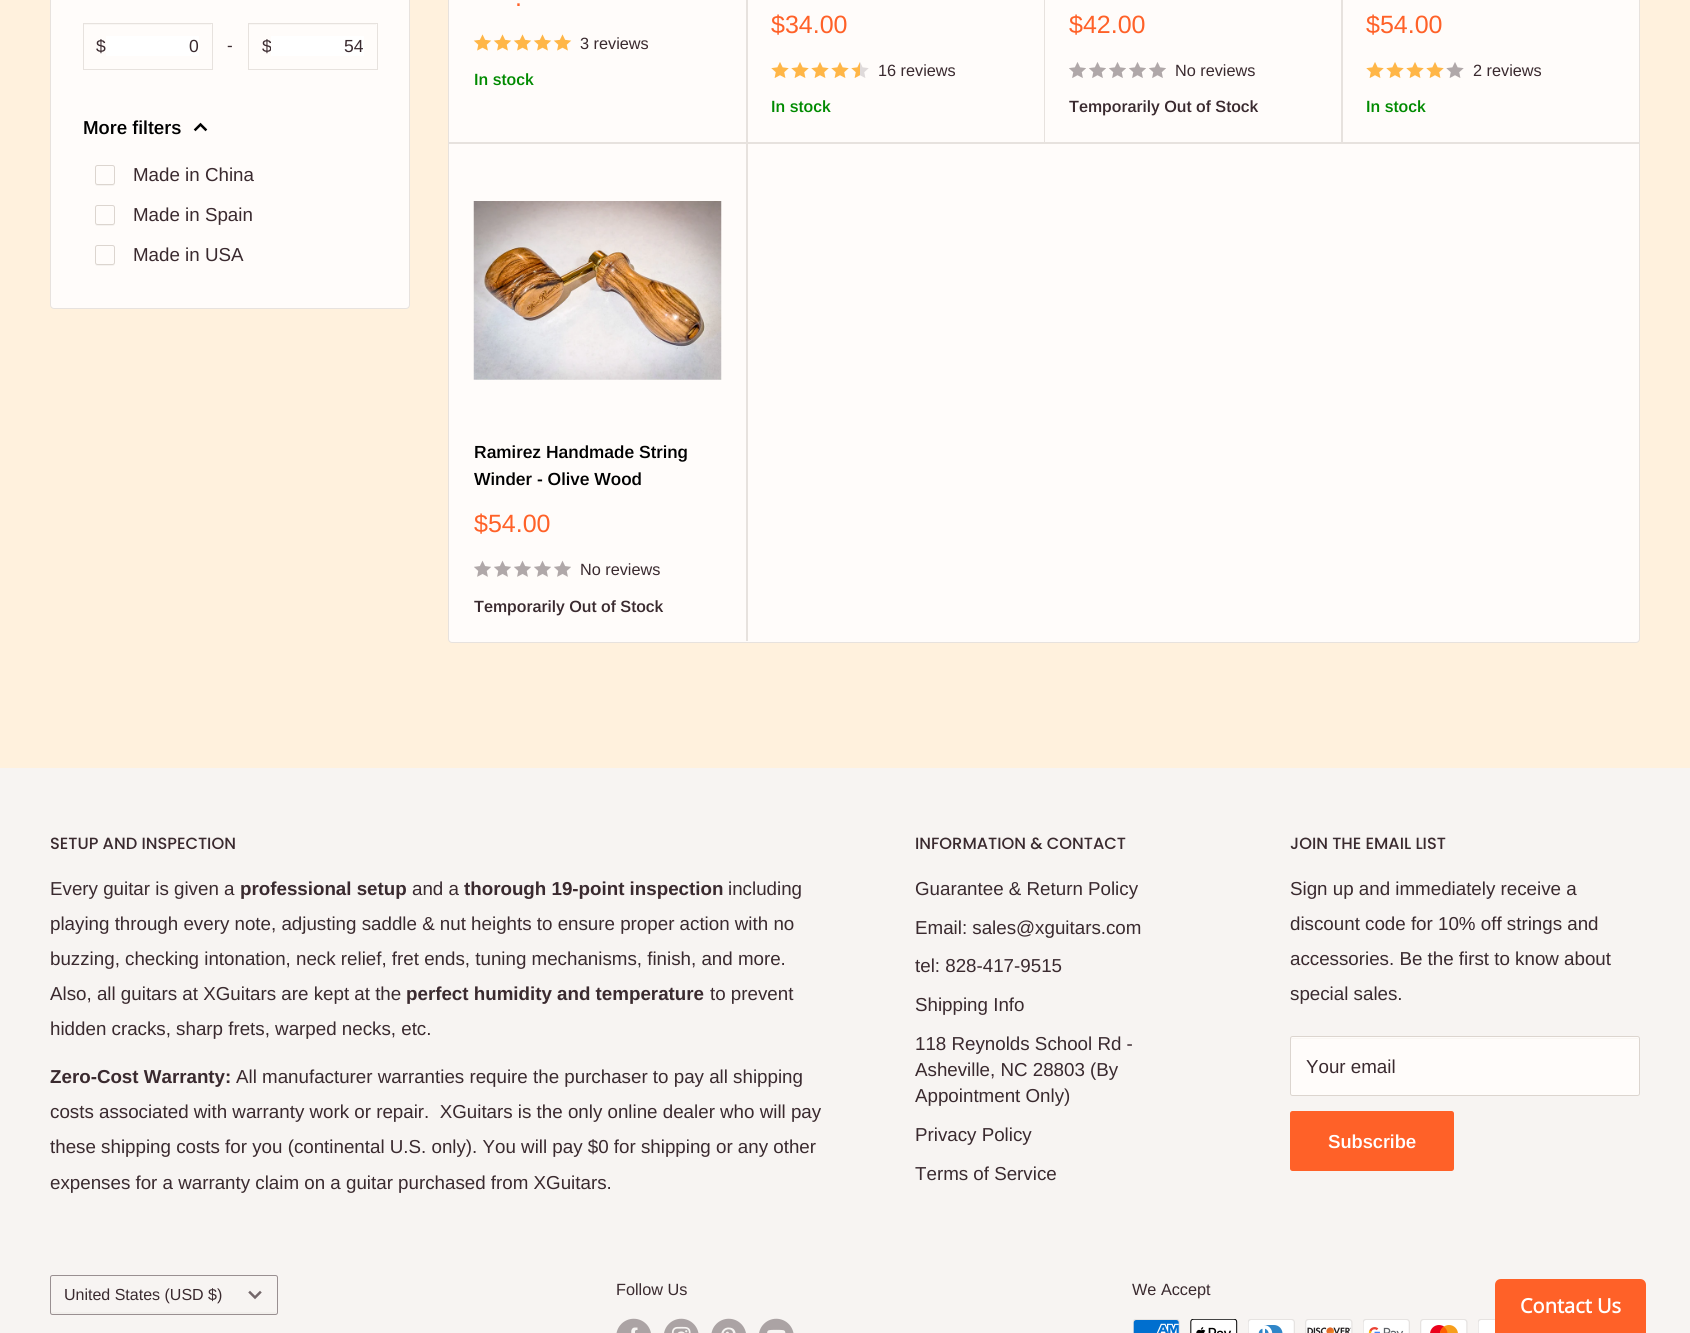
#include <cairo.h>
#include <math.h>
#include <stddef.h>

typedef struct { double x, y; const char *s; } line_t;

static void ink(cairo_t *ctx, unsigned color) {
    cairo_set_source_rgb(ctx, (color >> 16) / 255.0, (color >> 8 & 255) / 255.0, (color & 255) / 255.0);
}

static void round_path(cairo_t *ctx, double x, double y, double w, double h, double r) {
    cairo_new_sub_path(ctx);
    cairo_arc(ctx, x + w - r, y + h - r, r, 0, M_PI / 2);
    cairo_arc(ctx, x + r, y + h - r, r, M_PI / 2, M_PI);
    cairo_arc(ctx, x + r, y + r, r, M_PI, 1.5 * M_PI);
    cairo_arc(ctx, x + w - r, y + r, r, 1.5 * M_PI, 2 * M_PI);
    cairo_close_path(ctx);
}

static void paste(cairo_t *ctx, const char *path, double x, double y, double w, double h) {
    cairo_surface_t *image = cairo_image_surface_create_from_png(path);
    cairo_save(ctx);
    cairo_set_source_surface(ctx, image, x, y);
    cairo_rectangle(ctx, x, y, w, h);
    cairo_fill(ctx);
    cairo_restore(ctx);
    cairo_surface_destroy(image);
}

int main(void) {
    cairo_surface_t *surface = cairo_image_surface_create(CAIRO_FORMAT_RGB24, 1690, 1333);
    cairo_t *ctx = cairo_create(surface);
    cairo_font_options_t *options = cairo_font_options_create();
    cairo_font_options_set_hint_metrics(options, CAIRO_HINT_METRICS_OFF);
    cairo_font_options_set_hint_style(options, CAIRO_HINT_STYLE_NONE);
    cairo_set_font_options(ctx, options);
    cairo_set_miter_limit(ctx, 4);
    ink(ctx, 0xFFF1DD);
    cairo_paint(ctx);
    ink(ctx, 0xFFFCFA);
    round_path(ctx, 50.5, -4.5, 359, 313, 3.5);
    cairo_fill_preserve(ctx);
    ink(ctx, 0xE7E2DE);
    cairo_set_line_width(ctx, 1);
    cairo_stroke(ctx);
    ink(ctx, 0xF9F6F3);
    cairo_rectangle(ctx, 84, 24, 127, 1);
    cairo_fill(ctx);
    cairo_rectangle(ctx, 83.5, 23.5, 129, 46);
    ink(ctx, 0xE7E2DE);
    cairo_stroke(ctx);
    cairo_select_font_face(ctx, "Arimo", CAIRO_FONT_SLANT_NORMAL, CAIRO_FONT_WEIGHT_NORMAL);
    cairo_set_font_size(ctx, 17.5);
    ink(ctx, 0x3A2A2F);
    cairo_move_to(ctx, 96, 52);
    cairo_show_text(ctx, "$");
    ink(ctx, 0xFFFFFF);
    cairo_rectangle(ctx, 106, 36, 93, 20);
    cairo_fill(ctx);
    ink(ctx, 0x3A2A2F);
    cairo_move_to(ctx, 189, 52);
    cairo_show_text(ctx, "0");
    cairo_set_font_size(ctx, 17);
    cairo_move_to(ctx, 227, 51);
    cairo_show_text(ctx, "-");
    ink(ctx, 0xF9F6F3);
    cairo_rectangle(ctx, 249, 24, 127, 1);
    cairo_fill(ctx);
    cairo_rectangle(ctx, 248.5, 23.5, 129, 46);
    ink(ctx, 0xE7E2DE);
    cairo_stroke(ctx);
    cairo_set_font_size(ctx, 17.5);
    ink(ctx, 0x3A2A2F);
    cairo_move_to(ctx, 262, 52);
    cairo_show_text(ctx, "$");
    ink(ctx, 0xFFFFFF);
    cairo_rectangle(ctx, 271, 36, 93, 20);
    cairo_fill(ctx);
    ink(ctx, 0x3A2A2F);
    cairo_move_to(ctx, 344, 52);
    cairo_show_text(ctx, "54");
    cairo_select_font_face(ctx, "Arimo SemiBold", CAIRO_FONT_SLANT_NORMAL, CAIRO_FONT_WEIGHT_NORMAL);
    cairo_set_font_size(ctx, 18.75);
    ink(ctx, 0x000000);
    cairo_move_to(ctx, 83, 134);
    cairo_show_text(ctx, "More filters");
    cairo_new_path(ctx);
    cairo_move_to(ctx, 195.5, 129.5);
    cairo_line_to(ctx, 200.5, 124.5);
    cairo_line_to(ctx, 205.5, 129.5);
    cairo_set_line_width(ctx, 2.5);
    cairo_set_line_cap(ctx, CAIRO_LINE_CAP_SQUARE);
    cairo_stroke(ctx);
    ink(ctx, 0xF5F2EF);
    cairo_new_path(ctx);
    cairo_move_to(ctx, 95, 182.5);
    cairo_curve_to(ctx, 95, 186, 96.5, 186, 100, 186);
    cairo_line_to(ctx, 110, 186);
    cairo_curve_to(ctx, 113.5, 186, 115, 186, 115, 182.5);
    cairo_curve_to(ctx, 115, 184, 114, 185, 112.5, 185);
    cairo_line_to(ctx, 97.5, 185);
    cairo_curve_to(ctx, 96, 185, 95, 184, 95, 182.5);
    cairo_close_path(ctx);
    cairo_fill(ctx);
    round_path(ctx, 95.5, 165.5, 19, 19, 2);
    ink(ctx, 0xDCD5CF);
    cairo_set_line_width(ctx, 1);
    cairo_set_line_cap(ctx, CAIRO_LINE_CAP_BUTT);
    cairo_stroke(ctx);
    cairo_select_font_face(ctx, "Arimo", CAIRO_FONT_SLANT_NORMAL, CAIRO_FONT_WEIGHT_NORMAL);
    ink(ctx, 0x3A2A2F);
    cairo_move_to(ctx, 133, 181);
    cairo_show_text(ctx, "Made in China");
    ink(ctx, 0xF5F2EF);
    cairo_new_path(ctx);
    cairo_move_to(ctx, 95, 222.5);
    cairo_curve_to(ctx, 95, 226, 96.5, 226, 100, 226);
    cairo_line_to(ctx, 110, 226);
    cairo_curve_to(ctx, 113.5, 226, 115, 226, 115, 222.5);
    cairo_curve_to(ctx, 115, 224, 114, 225, 112.5, 225);
    cairo_line_to(ctx, 97.5, 225);
    cairo_curve_to(ctx, 96, 225, 95, 224, 95, 222.5);
    cairo_close_path(ctx);
    cairo_fill(ctx);
    round_path(ctx, 95.5, 205.5, 19, 19, 2);
    ink(ctx, 0xDCD5CF);
    cairo_stroke(ctx);
    ink(ctx, 0x3A2A2F);
    cairo_move_to(ctx, 133, 221);
    cairo_show_text(ctx, "Made in Spain");
    ink(ctx, 0xF5F2EF);
    cairo_new_path(ctx);
    cairo_move_to(ctx, 95, 262.5);
    cairo_curve_to(ctx, 95, 266, 96.5, 266, 100, 266);
    cairo_line_to(ctx, 110, 266);
    cairo_curve_to(ctx, 113.5, 266, 115, 266, 115, 262.5);
    cairo_curve_to(ctx, 115, 264, 114, 265, 112.5, 265);
    cairo_line_to(ctx, 97.5, 265);
    cairo_curve_to(ctx, 96, 265, 95, 264, 95, 262.5);
    cairo_close_path(ctx);
    cairo_fill(ctx);
    round_path(ctx, 95.5, 245.5, 19, 19, 2);
    ink(ctx, 0xDCD5CF);
    cairo_stroke(ctx);
    ink(ctx, 0x3A2A2F);
    cairo_move_to(ctx, 133, 261);
    cairo_show_text(ctx, "Made in USA");
    ink(ctx, 0xFFFCFA);
    round_path(ctx, 448.5, -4.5, 1191, 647, 3.5);
    cairo_fill_preserve(ctx);
    ink(ctx, 0xE7E2DE);
    cairo_stroke(ctx);
    cairo_rectangle(ctx, 449, 142, 297, 2);
    cairo_fill(ctx);
    cairo_set_font_size(ctx, 25);
    ink(ctx, 0xFF6128);
    cairo_move_to(ctx, 515, 6);
    cairo_show_text(ctx, ".");
    paste(ctx, "media/1.png", 473, 34, 19, 17);
    paste(ctx, "media/1.png", 493, 34, 19, 17);
    paste(ctx, "media/1.png", 513, 34, 19, 17);
    paste(ctx, "media/1.png", 533, 34, 19, 17);
    paste(ctx, "media/1.png", 553, 34, 19, 17);
    cairo_set_font_size(ctx, 16.25);
    ink(ctx, 0x3A2A2F);
    cairo_move_to(ctx, 580, 49);
    cairo_show_text(ctx, "3 reviews");
    cairo_select_font_face(ctx, "Arimo SemiBold", CAIRO_FONT_SLANT_NORMAL, CAIRO_FONT_WEIGHT_NORMAL);
    ink(ctx, 0x008A00);
    cairo_move_to(ctx, 474, 85);
    cairo_show_text(ctx, "In stock");
    ink(ctx, 0xE7E2DE);
    cairo_new_path(ctx);
    cairo_move_to(ctx, 450, 142);
    cairo_line_to(ctx, 450, 143);
    cairo_line_to(ctx, 748, 143);
    cairo_line_to(ctx, 748, -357);
    cairo_line_to(ctx, 746, -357);
    cairo_line_to(ctx, 746, 142);
    cairo_close_path(ctx);
    cairo_fill(ctx);
    cairo_new_path(ctx);
    cairo_move_to(ctx, 746, -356);
    cairo_line_to(ctx, 746, 144);
    cairo_line_to(ctx, 1044, 144);
    cairo_line_to(ctx, 1044, -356);
    cairo_line_to(ctx, 1044, 142);
    cairo_line_to(ctx, 746, 142);
    cairo_close_path(ctx);
    cairo_fill(ctx);
    cairo_select_font_face(ctx, "Arimo", CAIRO_FONT_SLANT_NORMAL, CAIRO_FONT_WEIGHT_NORMAL);
    cairo_set_font_size(ctx, 25);
    ink(ctx, 0xFF6128);
    cairo_move_to(ctx, 771, 33);
    cairo_show_text(ctx, "$34.00");
    paste(ctx, "media/2.png", 771, 62, 18, 16);
    paste(ctx, "media/2.png", 791, 62, 18, 16);
    paste(ctx, "media/2.png", 811, 62, 18, 16);
    paste(ctx, "media/2.png", 831, 62, 18, 16);
    paste(ctx, "media/3.png", 851, 62, 18, 16);
    cairo_set_font_size(ctx, 16.25);
    ink(ctx, 0x3A2A2F);
    cairo_move_to(ctx, 878, 76);
    cairo_show_text(ctx, "16 reviews");
    cairo_select_font_face(ctx, "Arimo SemiBold", CAIRO_FONT_SLANT_NORMAL, CAIRO_FONT_WEIGHT_NORMAL);
    ink(ctx, 0x008A00);
    cairo_move_to(ctx, 771, 112);
    cairo_show_text(ctx, "In stock");
    ink(ctx, 0xE7E2DE);
    cairo_new_path(ctx);
    cairo_move_to(ctx, 748, 142);
    cairo_line_to(ctx, 748, 143);
    cairo_line_to(ctx, 1045, 143);
    cairo_line_to(ctx, 1045, -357);
    cairo_line_to(ctx, 1044, -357);
    cairo_line_to(ctx, 1044, 142);
    cairo_close_path(ctx);
    cairo_fill(ctx);
    cairo_rectangle(ctx, 1044, 142, 297, 2);
    cairo_fill(ctx);
    cairo_select_font_face(ctx, "Arimo", CAIRO_FONT_SLANT_NORMAL, CAIRO_FONT_WEIGHT_NORMAL);
    cairo_set_font_size(ctx, 25);
    ink(ctx, 0xFF6128);
    cairo_move_to(ctx, 1069, 33);
    cairo_show_text(ctx, "$42.00");
    paste(ctx, "media/4.png", 1069, 62, 17, 16);
    paste(ctx, "media/4.png", 1089, 62, 17, 16);
    paste(ctx, "media/4.png", 1109, 62, 17, 16);
    paste(ctx, "media/4.png", 1129, 62, 17, 16);
    paste(ctx, "media/4.png", 1149, 62, 17, 16);
    cairo_set_font_size(ctx, 16.25);
    ink(ctx, 0x3A2A2F);
    cairo_move_to(ctx, 1175, 76);
    cairo_show_text(ctx, "No reviews");
    cairo_select_font_face(ctx, "Arimo SemiBold", CAIRO_FONT_SLANT_NORMAL, CAIRO_FONT_WEIGHT_NORMAL);
    cairo_move_to(ctx, 1069, 112);
    cairo_show_text(ctx, "Temporarily Out of Stock");
    ink(ctx, 0xE7E2DE);
    cairo_new_path(ctx);
    cairo_move_to(ctx, 1045, 142);
    cairo_line_to(ctx, 1045, 143);
    cairo_line_to(ctx, 1343, 143);
    cairo_line_to(ctx, 1343, -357);
    cairo_line_to(ctx, 1341, -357);
    cairo_line_to(ctx, 1341, 142);
    cairo_close_path(ctx);
    cairo_fill(ctx);
    cairo_select_font_face(ctx, "Arimo", CAIRO_FONT_SLANT_NORMAL, CAIRO_FONT_WEIGHT_NORMAL);
    cairo_set_font_size(ctx, 25);
    ink(ctx, 0xFF6128);
    cairo_move_to(ctx, 1366, 33);
    cairo_show_text(ctx, "$54.00");
    paste(ctx, "media/2.png", 1366, 62, 18, 16);
    paste(ctx, "media/2.png", 1386, 62, 18, 16);
    paste(ctx, "media/2.png", 1406, 62, 18, 16);
    paste(ctx, "media/2.png", 1426, 62, 18, 16);
    paste(ctx, "media/5.png", 1446, 62, 18, 16);
    cairo_set_font_size(ctx, 16.25);
    ink(ctx, 0x3A2A2F);
    cairo_move_to(ctx, 1473, 76);
    cairo_show_text(ctx, "2 reviews");
    cairo_select_font_face(ctx, "Arimo SemiBold", CAIRO_FONT_SLANT_NORMAL, CAIRO_FONT_WEIGHT_NORMAL);
    ink(ctx, 0x008A00);
    cairo_move_to(ctx, 1366, 112);
    cairo_show_text(ctx, "In stock");
    ink(ctx, 0xE7E2DE);
    cairo_new_path(ctx);
    cairo_move_to(ctx, 1341, -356);
    cairo_line_to(ctx, 1341, 144);
    cairo_line_to(ctx, 1639, 144);
    cairo_line_to(ctx, 1639, -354);
    cairo_line_to(ctx, 1639, 142);
    cairo_line_to(ctx, 1341, 142);
    cairo_close_path(ctx);
    cairo_fill(ctx);
    paste(ctx, "media/6.png", 473, 201, 249, 179);
    cairo_rectangle(ctx, 746, 143, 2, 498);
    cairo_fill(ctx);
    cairo_set_font_size(ctx, 17.5);
    ink(ctx, 0x000000);
    cairo_move_to(ctx, 474, 458);
    cairo_show_text(ctx, "Ramirez Handmade String");
    cairo_move_to(ctx, 474, 485);
    cairo_show_text(ctx, "Winder - Olive Wood");
    cairo_select_font_face(ctx, "Arimo", CAIRO_FONT_SLANT_NORMAL, CAIRO_FONT_WEIGHT_NORMAL);
    cairo_set_font_size(ctx, 25);
    ink(ctx, 0xFF6128);
    cairo_move_to(ctx, 474, 532);
    cairo_show_text(ctx, "$54.00");
    paste(ctx, "media/7.png", 474, 560, 17, 17);
    paste(ctx, "media/7.png", 494, 560, 17, 17);
    paste(ctx, "media/7.png", 514, 560, 17, 17);
    paste(ctx, "media/7.png", 534, 560, 17, 17);
    paste(ctx, "media/7.png", 554, 560, 17, 17);
    cairo_set_font_size(ctx, 16.25);
    ink(ctx, 0x3A2A2F);
    cairo_move_to(ctx, 580, 575);
    cairo_show_text(ctx, "No reviews");
    cairo_select_font_face(ctx, "Arimo SemiBold", CAIRO_FONT_SLANT_NORMAL, CAIRO_FONT_WEIGHT_NORMAL);
    cairo_move_to(ctx, 474, 612);
    cairo_show_text(ctx, "Temporarily Out of Stock");
    ink(ctx, 0xF7F4F2);
    cairo_rectangle(ctx, 0, 768, 1690, 565);
    cairo_fill(ctx);
    cairo_select_font_face(ctx, "Poppins Medium", CAIRO_FONT_SLANT_NORMAL, CAIRO_FONT_WEIGHT_NORMAL);
    ink(ctx, 0x3A2A2F);
    cairo_move_to(ctx, 50, 849);
    cairo_show_text(ctx, "SETUP AND INSPECTION");
    cairo_select_font_face(ctx, "Arimo", CAIRO_FONT_SLANT_NORMAL, CAIRO_FONT_WEIGHT_NORMAL);
    cairo_set_font_size(ctx, 18.75);
    cairo_move_to(ctx, 50, 895);
    cairo_show_text(ctx, "Every guitar is given a");
    cairo_select_font_face(ctx, "Arimo", CAIRO_FONT_SLANT_NORMAL, CAIRO_FONT_WEIGHT_BOLD);
    cairo_move_to(ctx, 240, 895);
    cairo_show_text(ctx, "professional setup");
    cairo_select_font_face(ctx, "Arimo", CAIRO_FONT_SLANT_NORMAL, CAIRO_FONT_WEIGHT_NORMAL);
    cairo_move_to(ctx, 412, 895);
    cairo_show_text(ctx, "and a");
    cairo_select_font_face(ctx, "Arimo", CAIRO_FONT_SLANT_NORMAL, CAIRO_FONT_WEIGHT_BOLD);
    cairo_move_to(ctx, 464, 895);
    cairo_show_text(ctx, "thorough 19-point inspection");
    cairo_select_font_face(ctx, "Arimo", CAIRO_FONT_SLANT_NORMAL, CAIRO_FONT_WEIGHT_NORMAL);
    {
        static const line_t items[] = {
            {728, 895, "including"},
            {50, 930, "playing through every note, adjusting saddle & nut heights to ensure proper action with no"},
            {50, 965, "buzzing, checking intonation, neck relief, fret ends, tuning mechanisms, finish, and more."},
            {50, 1000, "Also, all guitars at XGuitars are kept at the"},
        };
        for (size_t i = 0; i < sizeof items / sizeof *items; i++) {
            cairo_move_to(ctx, items[i].x, items[i].y);
            cairo_show_text(ctx, items[i].s);
        }
    }
    cairo_select_font_face(ctx, "Arimo", CAIRO_FONT_SLANT_NORMAL, CAIRO_FONT_WEIGHT_BOLD);
    cairo_move_to(ctx, 406, 1000);
    cairo_show_text(ctx, "perfect humidity and temperature");
    cairo_select_font_face(ctx, "Arimo", CAIRO_FONT_SLANT_NORMAL, CAIRO_FONT_WEIGHT_NORMAL);
    cairo_move_to(ctx, 710, 1000);
    cairo_show_text(ctx, "to prevent");
    cairo_move_to(ctx, 50, 1035);
    cairo_show_text(ctx, "hidden cracks, sharp frets, warped necks, etc.");
    cairo_select_font_face(ctx, "Arimo", CAIRO_FONT_SLANT_NORMAL, CAIRO_FONT_WEIGHT_BOLD);
    cairo_move_to(ctx, 50, 1083);
    cairo_show_text(ctx, "Zero-Cost Warranty:");
    cairo_select_font_face(ctx, "Arimo", CAIRO_FONT_SLANT_NORMAL, CAIRO_FONT_WEIGHT_NORMAL);
    {
        static const line_t items[] = {
            {236, 1083, "All manufacturer warranties require the purchaser to pay all shipping"},
            {50, 1118, "costs associated with warranty work or repair.  XGuitars is the only online dealer who will pay"},
            {50, 1153, "these shipping costs for you (continental U.S. only). You will pay $0 for shipping or any other"},
            {50, 1189, "expenses for a warranty claim on a guitar purchased from XGuitars."},
        };
        for (size_t i = 0; i < sizeof items / sizeof *items; i++) {
            cairo_move_to(ctx, items[i].x, items[i].y);
            cairo_show_text(ctx, items[i].s);
        }
    }
    cairo_select_font_face(ctx, "Poppins Medium", CAIRO_FONT_SLANT_NORMAL, CAIRO_FONT_WEIGHT_NORMAL);
    cairo_set_font_size(ctx, 16.25);
    cairo_move_to(ctx, 915, 849);
    cairo_show_text(ctx, "INFORMATION & CONTACT");
    cairo_select_font_face(ctx, "Arimo", CAIRO_FONT_SLANT_NORMAL, CAIRO_FONT_WEIGHT_NORMAL);
    cairo_set_font_size(ctx, 18.75);
    {
        static const line_t items[] = {
            {915, 895, "Guarantee & Return Policy"},
            {915, 934, "Email: sales@xguitars.com"},
            {915, 972, "tel: 828-417-9515"},
            {915, 1011, "Shipping Info"},
            {915, 1050, "118 Reynolds School Rd -"},
            {915, 1076, "Asheville, NC 28803 (By"},
            {915, 1102, "Appointment Only)"},
            {915, 1141, "Privacy Policy"},
            {915, 1180, "Terms of Service"},
        };
        for (size_t i = 0; i < sizeof items / sizeof *items; i++) {
            cairo_move_to(ctx, items[i].x, items[i].y);
            cairo_show_text(ctx, items[i].s);
        }
    }
    cairo_select_font_face(ctx, "Poppins Medium", CAIRO_FONT_SLANT_NORMAL, CAIRO_FONT_WEIGHT_NORMAL);
    cairo_set_font_size(ctx, 16.25);
    cairo_move_to(ctx, 1290, 849);
    cairo_show_text(ctx, "JOIN THE EMAIL LIST");
    cairo_select_font_face(ctx, "Arimo", CAIRO_FONT_SLANT_NORMAL, CAIRO_FONT_WEIGHT_NORMAL);
    cairo_set_font_size(ctx, 18.75);
    {
        static const line_t items[] = {
            {1290, 895, "Sign up and immediately receive a"},
            {1290, 930, "discount code for 10% off strings and"},
            {1290, 965, "accessories. Be the first to know about"},
            {1290, 1000, "special sales."},
        };
        for (size_t i = 0; i < sizeof items / sizeof *items; i++) {
            cairo_move_to(ctx, items[i].x, items[i].y);
            cairo_show_text(ctx, items[i].s);
        }
    }
    ink(ctx, 0xFFFCFA);
    round_path(ctx, 1290, 1036, 350, 60, 2.5);
    cairo_fill(ctx);
    ink(ctx, 0xF9F6F3);
    cairo_new_path(ctx);
    cairo_move_to(ctx, 1292, 1039);
    cairo_line_to(ctx, 1638, 1039);
    cairo_line_to(ctx, 1639, 1040);
    cairo_line_to(ctx, 1639, 1039);
    cairo_line_to(ctx, 1638, 1038);
    cairo_line_to(ctx, 1291, 1038);
    cairo_line_to(ctx, 1291, 1040);
    cairo_close_path(ctx);
    cairo_fill(ctx);
    round_path(ctx, 1290.5, 1036.5, 349, 59, 2);
    ink(ctx, 0xDCD5CF);
    cairo_stroke(ctx);
    ink(ctx, 0x3A2A2F);
    cairo_move_to(ctx, 1306, 1073);
    cairo_show_text(ctx, "Your email");
    ink(ctx, 0xFF6128);
    round_path(ctx, 1290, 1111, 164, 60, 2.5);
    cairo_fill(ctx);
    cairo_select_font_face(ctx, "Arimo SemiBold", CAIRO_FONT_SLANT_NORMAL, CAIRO_FONT_WEIGHT_NORMAL);
    ink(ctx, 0xFFFFFF);
    cairo_move_to(ctx, 1328, 1148);
    cairo_show_text(ctx, "Subscribe");
    ink(ctx, 0xF2EFEC);
    cairo_new_path(ctx);
    cairo_move_to(ctx, 51, 1311);
    cairo_line_to(ctx, 51, 1313);
    cairo_curve_to(ctx, 51, 1314, 51, 1314, 52, 1314);
    cairo_line_to(ctx, 275, 1314);
    cairo_curve_to(ctx, 276, 1314, 276, 1314, 276, 1313);
    cairo_line_to(ctx, 276, 1311);
    cairo_curve_to(ctx, 276, 1312, 276, 1312, 275, 1312);
    cairo_line_to(ctx, 52, 1312);
    cairo_close_path(ctx);
    cairo_fill(ctx);
    round_path(ctx, 50.5, 1275.5, 227, 39, 2);
    ink(ctx, 0x998F91);
    cairo_stroke(ctx);
    cairo_select_font_face(ctx, "Arimo", CAIRO_FONT_SLANT_NORMAL, CAIRO_FONT_WEIGHT_NORMAL);
    cairo_set_font_size(ctx, 16);
    ink(ctx, 0x3A2A2F);
    cairo_move_to(ctx, 64, 1300);
    cairo_show_text(ctx, "United States (USD $)");
    cairo_new_path(ctx);
    cairo_move_to(ctx, 260, 1292.5);
    cairo_line_to(ctx, 255, 1297.5);
    cairo_line_to(ctx, 250, 1292.5);
    ink(ctx, 0x73676A);
    cairo_set_line_width(ctx, 2.5);
    cairo_set_line_cap(ctx, CAIRO_LINE_CAP_SQUARE);
    cairo_stroke(ctx);
    cairo_set_font_size(ctx, 16.25);
    ink(ctx, 0x3A2A2F);
    cairo_move_to(ctx, 616, 1295);
    cairo_show_text(ctx, "Follow Us");
    paste(ctx, "media/8.png", 616, 1318, 35, 15);
    paste(ctx, "media/9.png", 664, 1318, 35, 15);
    paste(ctx, "media/10.png", 711, 1318, 35, 15);
    paste(ctx, "media/11.png", 759, 1318, 35, 15);
    cairo_move_to(ctx, 1132, 1295);
    cairo_show_text(ctx, "We Accept");
    paste(ctx, "media/12.png", 1133, 1319, 47, 14);
    paste(ctx, "media/13.png", 1190, 1319, 48, 14);
    paste(ctx, "media/14.png", 1248, 1319, 47, 14);
    paste(ctx, "media/15.png", 1305, 1319, 48, 14);
    paste(ctx, "media/16.png", 1363, 1319, 47, 14);
    paste(ctx, "media/17.png", 1420, 1319, 48, 14);
    paste(ctx, "media/18.png", 1478, 1319, 17, 14);
    ink(ctx, 0xFF6128);
    cairo_new_path(ctx);
    cairo_move_to(ctx, 1501, 1279);
    cairo_line_to(ctx, 1640, 1279);
    cairo_curve_to(ctx, 1643.5, 1279, 1646, 1281.5, 1646, 1285);
    cairo_line_to(ctx, 1646, 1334);
    cairo_line_to(ctx, 1495, 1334);
    cairo_line_to(ctx, 1495, 1285);
    cairo_curve_to(ctx, 1495, 1281.5, 1497.5, 1279, 1501, 1279);
    cairo_close_path(ctx);
    cairo_fill(ctx);
    cairo_select_font_face(ctx, "Open Sans", CAIRO_FONT_SLANT_NORMAL, CAIRO_FONT_WEIGHT_BOLD);
    cairo_set_font_size(ctx, 20);
    ink(ctx, 0xFFFFFF);
    cairo_move_to(ctx, 1520, 1313);
    cairo_show_text(ctx, "Contact Us");
    cairo_surface_write_to_png(surface, "image.png");
    cairo_font_options_destroy(options);
    cairo_destroy(ctx);
    cairo_surface_destroy(surface);
    return 0;
}
